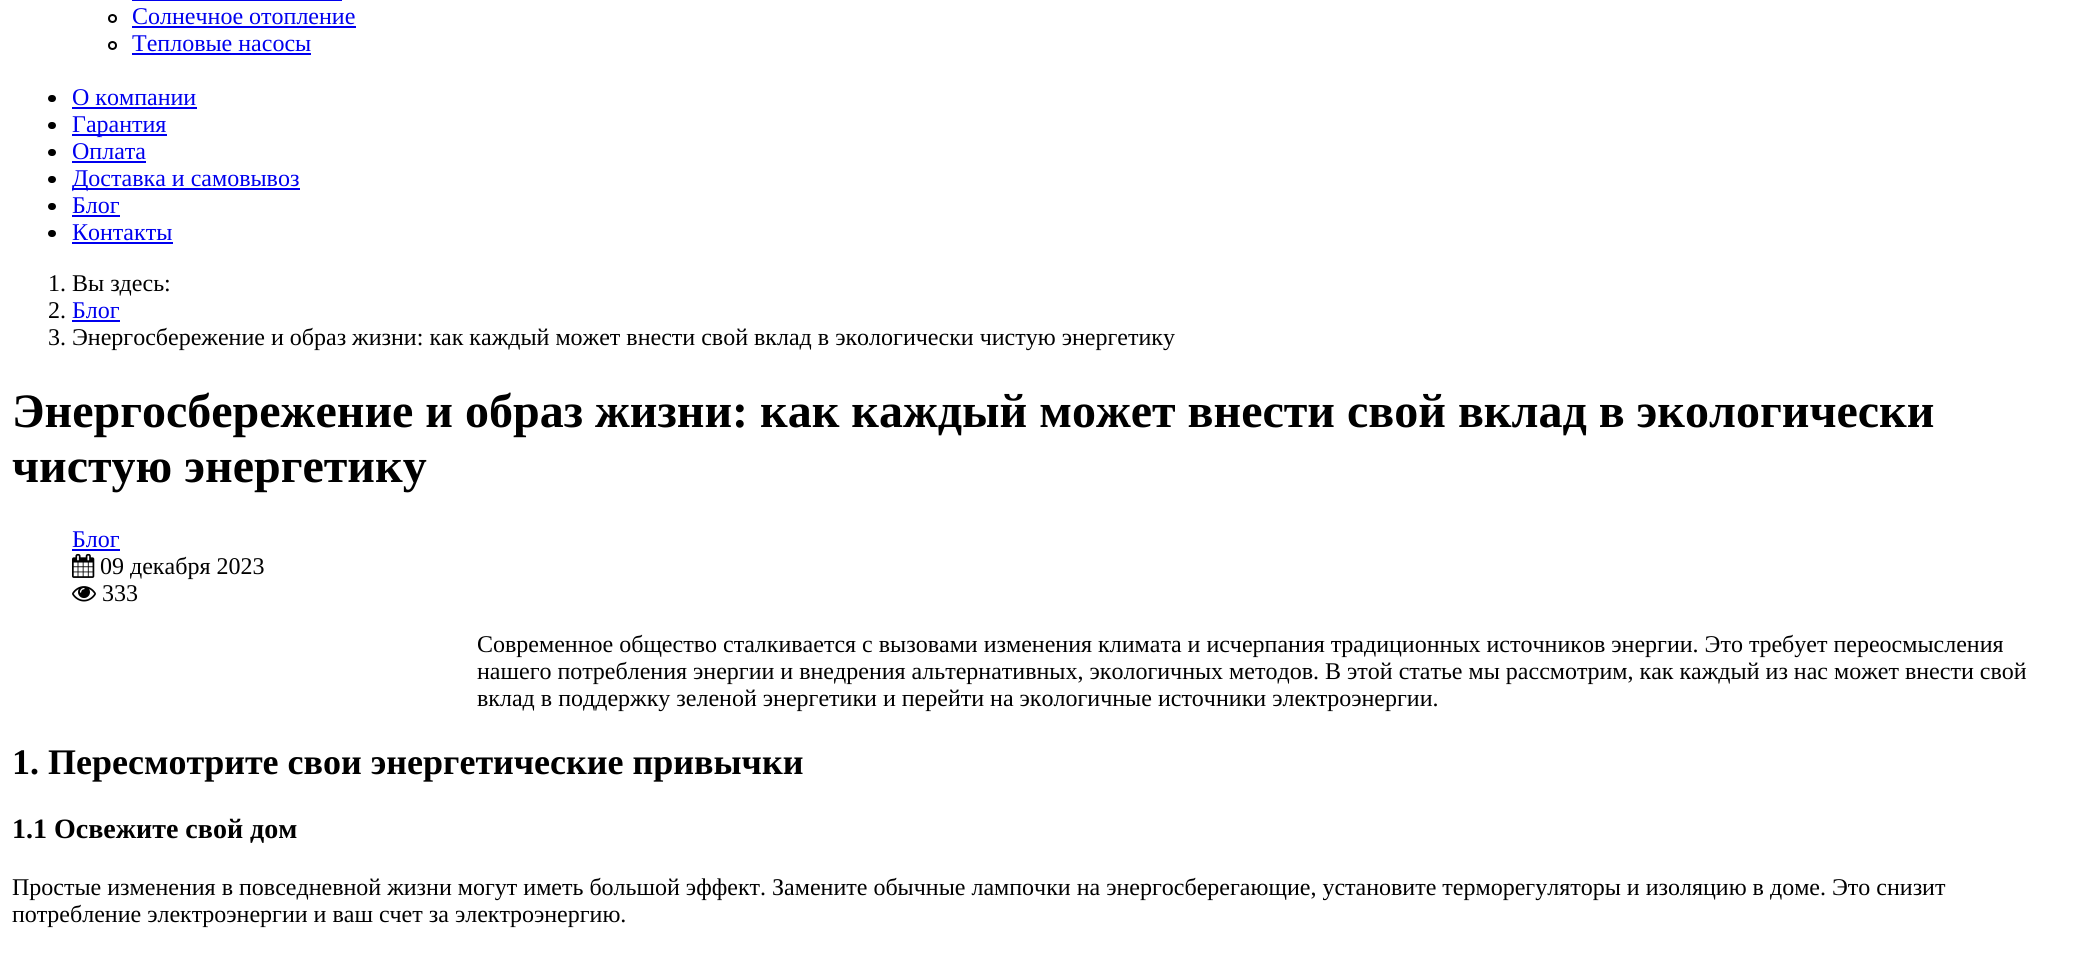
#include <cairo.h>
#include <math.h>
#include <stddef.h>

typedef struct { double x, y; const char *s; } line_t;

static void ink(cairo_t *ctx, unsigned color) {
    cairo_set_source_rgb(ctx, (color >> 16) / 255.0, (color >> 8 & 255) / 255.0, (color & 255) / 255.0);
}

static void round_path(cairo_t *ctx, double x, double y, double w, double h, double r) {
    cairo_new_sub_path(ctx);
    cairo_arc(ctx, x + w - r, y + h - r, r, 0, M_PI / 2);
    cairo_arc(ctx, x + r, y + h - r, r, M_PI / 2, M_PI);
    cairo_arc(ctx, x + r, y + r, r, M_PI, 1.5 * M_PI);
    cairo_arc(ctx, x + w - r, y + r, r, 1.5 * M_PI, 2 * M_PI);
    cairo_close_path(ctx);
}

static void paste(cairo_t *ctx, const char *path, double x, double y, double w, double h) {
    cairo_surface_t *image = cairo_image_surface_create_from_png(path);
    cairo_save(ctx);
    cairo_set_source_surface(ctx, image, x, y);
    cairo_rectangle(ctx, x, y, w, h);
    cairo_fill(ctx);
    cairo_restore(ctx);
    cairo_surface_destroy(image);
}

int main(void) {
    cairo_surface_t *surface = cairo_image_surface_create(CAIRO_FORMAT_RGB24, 2080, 956);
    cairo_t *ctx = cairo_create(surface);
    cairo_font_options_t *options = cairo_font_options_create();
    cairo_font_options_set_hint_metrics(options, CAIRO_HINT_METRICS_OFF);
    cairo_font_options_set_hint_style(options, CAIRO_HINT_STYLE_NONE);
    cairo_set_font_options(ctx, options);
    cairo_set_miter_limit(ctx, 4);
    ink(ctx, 0xFFFFFF);
    cairo_paint(ctx);
    ink(ctx, 0x0000EE);
    cairo_rectangle(ctx, 132, 0, 210, 1);
    cairo_fill(ctx);
    cairo_arc(ctx, 112.5, 18.5, 3.5, 0, 2 * M_PI);
    ink(ctx, 0x000000);
    cairo_stroke(ctx);
    cairo_select_font_face(ctx, "Liberation Serif", CAIRO_FONT_SLANT_NORMAL, CAIRO_FONT_WEIGHT_NORMAL);
    cairo_set_font_size(ctx, 24);
    ink(ctx, 0x0000EE);
    cairo_move_to(ctx, 132, 24);
    cairo_show_text(ctx, "Солнечное отопление");
    cairo_rectangle(ctx, 132, 26, 224, 2);
    cairo_fill(ctx);
    cairo_arc(ctx, 112.5, 45.5, 3.5, 0, 2 * M_PI);
    ink(ctx, 0x000000);
    cairo_stroke(ctx);
    ink(ctx, 0x0000EE);
    cairo_move_to(ctx, 132, 51);
    cairo_show_text(ctx, "Тепловые насосы");
    cairo_rectangle(ctx, 132, 53, 179, 2);
    cairo_fill(ctx);
    ink(ctx, 0x000000);
    round_path(ctx, 48, 95, 8, 7, 3.5);
    cairo_fill(ctx);
    ink(ctx, 0x0000EE);
    cairo_move_to(ctx, 72, 105);
    cairo_show_text(ctx, "О компании");
    cairo_rectangle(ctx, 72, 107, 125, 2);
    cairo_fill(ctx);
    ink(ctx, 0x000000);
    round_path(ctx, 48, 122, 8, 7, 3.5);
    cairo_fill(ctx);
    ink(ctx, 0x0000EE);
    cairo_rectangle(ctx, 72, 134, 95, 2);
    cairo_fill(ctx);
    cairo_move_to(ctx, 72, 132);
    cairo_show_text(ctx, "Гарантия");
    ink(ctx, 0x000000);
    round_path(ctx, 48, 149, 8, 7, 3.5);
    cairo_fill(ctx);
    ink(ctx, 0x0000EE);
    cairo_move_to(ctx, 72, 159);
    cairo_show_text(ctx, "Оплата");
    cairo_rectangle(ctx, 72, 161, 74, 2);
    cairo_fill(ctx);
    ink(ctx, 0x000000);
    round_path(ctx, 48, 176, 8, 7, 3.5);
    cairo_fill(ctx);
    ink(ctx, 0x0000EE);
    cairo_rectangle(ctx, 72, 188, 228, 2);
    cairo_fill(ctx);
    cairo_move_to(ctx, 72, 186);
    cairo_show_text(ctx, "Доставка и самовывоз");
    ink(ctx, 0x000000);
    round_path(ctx, 48, 203, 8, 7, 3.5);
    cairo_fill(ctx);
    ink(ctx, 0x0000EE);
    cairo_move_to(ctx, 72, 213);
    cairo_show_text(ctx, "Блог");
    cairo_rectangle(ctx, 72, 215, 48, 2);
    cairo_fill(ctx);
    ink(ctx, 0x000000);
    round_path(ctx, 48, 230, 8, 7, 3.5);
    cairo_fill(ctx);
    ink(ctx, 0x0000EE);
    cairo_move_to(ctx, 72, 240);
    cairo_show_text(ctx, "Контакты");
    cairo_rectangle(ctx, 72, 242, 101, 2);
    cairo_fill(ctx);
    ink(ctx, 0x000000);
    cairo_move_to(ctx, 48, 291);
    cairo_show_text(ctx, "1. Вы здесь:");
    cairo_move_to(ctx, 48, 318);
    cairo_show_text(ctx, "2.");
    ink(ctx, 0x0000EE);
    cairo_move_to(ctx, 72, 318);
    cairo_show_text(ctx, "Блог");
    cairo_rectangle(ctx, 72, 320, 48, 2);
    cairo_fill(ctx);
    ink(ctx, 0x000000);
    cairo_move_to(ctx, 48, 345);
    cairo_show_text(ctx, "3. Энергосбережение и образ жизни: как каждый может внести свой вклад в экологически чистую энергетику");
    cairo_select_font_face(ctx, "Liberation Serif", CAIRO_FONT_SLANT_NORMAL, CAIRO_FONT_WEIGHT_BOLD);
    cairo_set_font_size(ctx, 48);
    cairo_move_to(ctx, 12, 427);
    cairo_show_text(ctx, "Энергосбережение и образ жизни: как каждый может внести свой вклад в экологически");
    cairo_move_to(ctx, 12, 482);
    cairo_show_text(ctx, "чистую энергетику");
    cairo_select_font_face(ctx, "Liberation Serif", CAIRO_FONT_SLANT_NORMAL, CAIRO_FONT_WEIGHT_NORMAL);
    cairo_set_font_size(ctx, 24);
    ink(ctx, 0x0000EE);
    cairo_move_to(ctx, 72, 547);
    cairo_show_text(ctx, "Блог");
    cairo_rectangle(ctx, 72, 549, 48, 2);
    cairo_fill(ctx);
    paste(ctx, "media/1.png", 72, 553, 23, 25);
    ink(ctx, 0x000000);
    cairo_move_to(ctx, 100, 574);
    cairo_show_text(ctx, "09 декабря 2023");
    paste(ctx, "media/2.png", 72, 586, 24, 16);
    {
        static const line_t items[] = {
            {102, 601, "333"},
            {477, 652, "Современное общество сталкивается с вызовами изменения климата и исчерпания традиционных источников энергии. Это требует переосмысления"},
            {477, 679, "нашего потребления энергии и внедрения альтернативных, экологичных методов. В этой статье мы рассмотрим, как каждый из нас может внести свой"},
            {477, 706, "вклад в поддержку зеленой энергетики и перейти на экологичные источники электроэнергии."},
        };
        for (size_t i = 0; i < sizeof items / sizeof *items; i++) {
            cairo_move_to(ctx, items[i].x, items[i].y);
            cairo_show_text(ctx, items[i].s);
        }
    }
    cairo_select_font_face(ctx, "Liberation Serif", CAIRO_FONT_SLANT_NORMAL, CAIRO_FONT_WEIGHT_BOLD);
    cairo_set_font_size(ctx, 36);
    cairo_move_to(ctx, 12, 774);
    cairo_show_text(ctx, "1. Пересмотрите свои энергетические привычки");
    cairo_set_font_size(ctx, 28);
    cairo_move_to(ctx, 12, 838);
    cairo_show_text(ctx, "1.1 Освежите свой дом");
    cairo_select_font_face(ctx, "Liberation Serif", CAIRO_FONT_SLANT_NORMAL, CAIRO_FONT_WEIGHT_NORMAL);
    cairo_set_font_size(ctx, 24);
    cairo_move_to(ctx, 12, 895);
    cairo_show_text(ctx, "Простые изменения в повседневной жизни могут иметь большой эффект. Замените обычные лампочки на энергосберегающие, установите терморегуляторы и изоляцию в доме. Это снизит");
    cairo_move_to(ctx, 12, 922);
    cairo_show_text(ctx, "потребление электроэнергии и ваш счет за электроэнергию.");
    cairo_surface_write_to_png(surface, "image.png");
    cairo_font_options_destroy(options);
    cairo_destroy(ctx);
    cairo_surface_destroy(surface);
    return 0;
}
